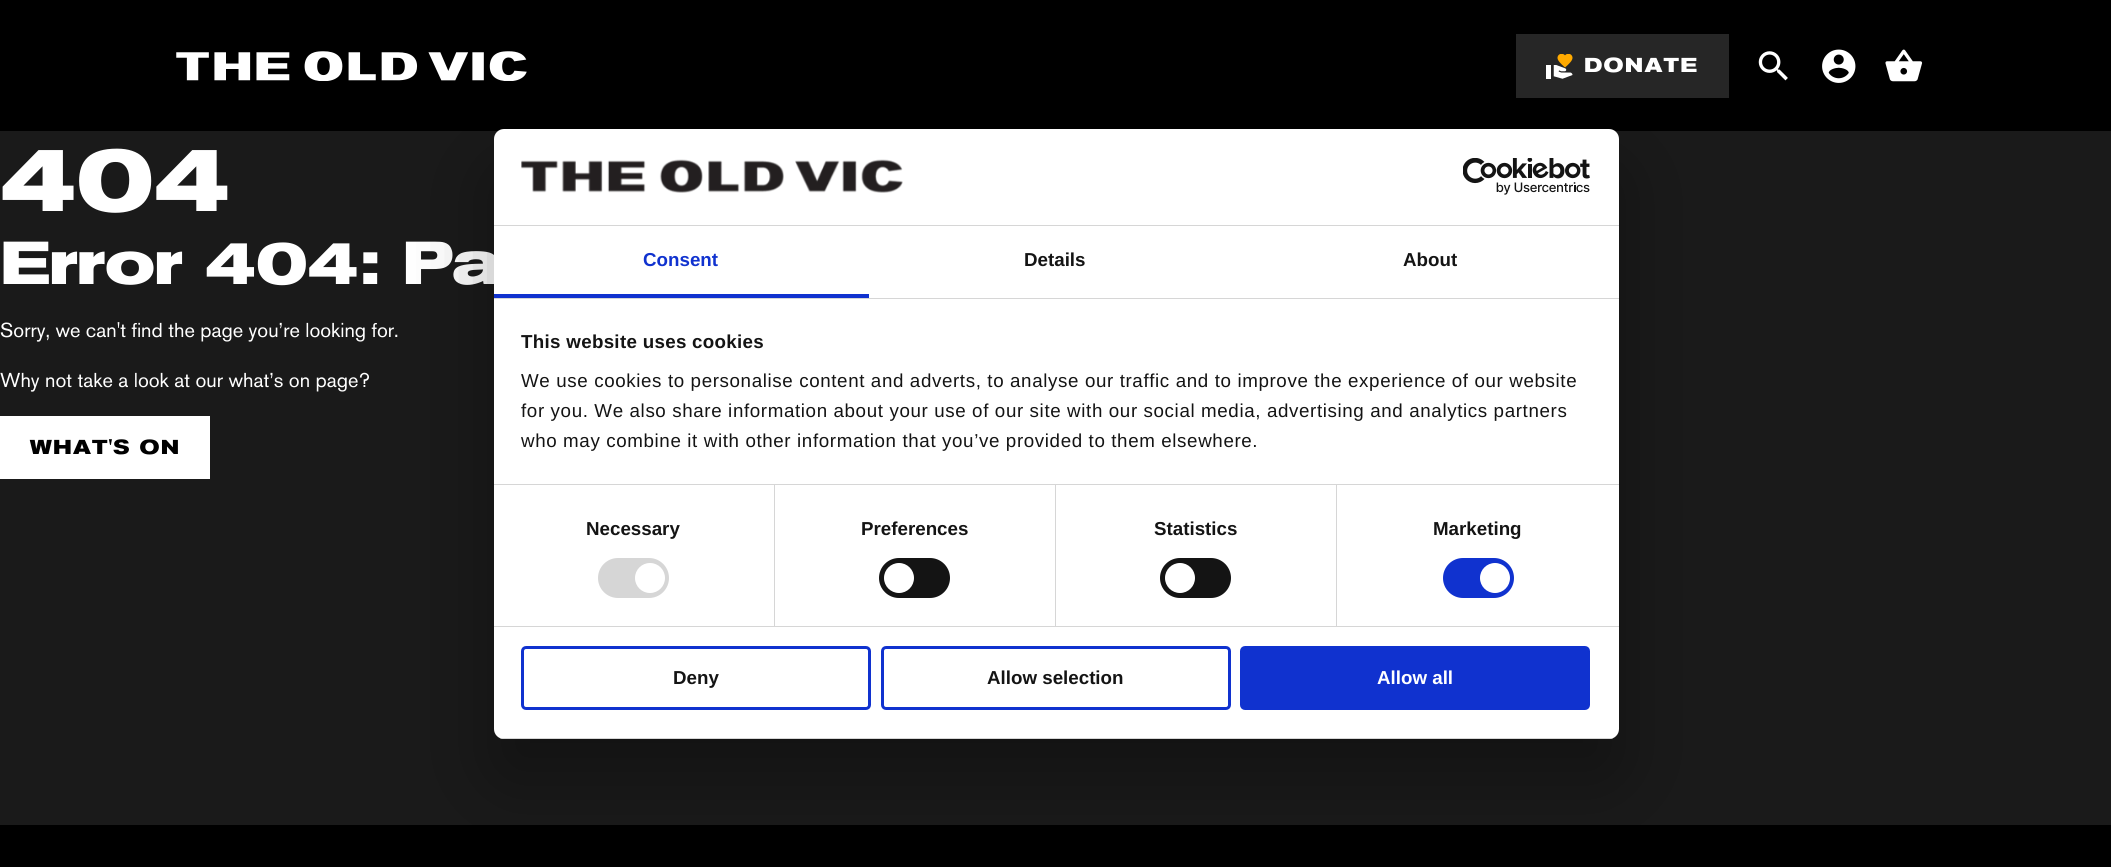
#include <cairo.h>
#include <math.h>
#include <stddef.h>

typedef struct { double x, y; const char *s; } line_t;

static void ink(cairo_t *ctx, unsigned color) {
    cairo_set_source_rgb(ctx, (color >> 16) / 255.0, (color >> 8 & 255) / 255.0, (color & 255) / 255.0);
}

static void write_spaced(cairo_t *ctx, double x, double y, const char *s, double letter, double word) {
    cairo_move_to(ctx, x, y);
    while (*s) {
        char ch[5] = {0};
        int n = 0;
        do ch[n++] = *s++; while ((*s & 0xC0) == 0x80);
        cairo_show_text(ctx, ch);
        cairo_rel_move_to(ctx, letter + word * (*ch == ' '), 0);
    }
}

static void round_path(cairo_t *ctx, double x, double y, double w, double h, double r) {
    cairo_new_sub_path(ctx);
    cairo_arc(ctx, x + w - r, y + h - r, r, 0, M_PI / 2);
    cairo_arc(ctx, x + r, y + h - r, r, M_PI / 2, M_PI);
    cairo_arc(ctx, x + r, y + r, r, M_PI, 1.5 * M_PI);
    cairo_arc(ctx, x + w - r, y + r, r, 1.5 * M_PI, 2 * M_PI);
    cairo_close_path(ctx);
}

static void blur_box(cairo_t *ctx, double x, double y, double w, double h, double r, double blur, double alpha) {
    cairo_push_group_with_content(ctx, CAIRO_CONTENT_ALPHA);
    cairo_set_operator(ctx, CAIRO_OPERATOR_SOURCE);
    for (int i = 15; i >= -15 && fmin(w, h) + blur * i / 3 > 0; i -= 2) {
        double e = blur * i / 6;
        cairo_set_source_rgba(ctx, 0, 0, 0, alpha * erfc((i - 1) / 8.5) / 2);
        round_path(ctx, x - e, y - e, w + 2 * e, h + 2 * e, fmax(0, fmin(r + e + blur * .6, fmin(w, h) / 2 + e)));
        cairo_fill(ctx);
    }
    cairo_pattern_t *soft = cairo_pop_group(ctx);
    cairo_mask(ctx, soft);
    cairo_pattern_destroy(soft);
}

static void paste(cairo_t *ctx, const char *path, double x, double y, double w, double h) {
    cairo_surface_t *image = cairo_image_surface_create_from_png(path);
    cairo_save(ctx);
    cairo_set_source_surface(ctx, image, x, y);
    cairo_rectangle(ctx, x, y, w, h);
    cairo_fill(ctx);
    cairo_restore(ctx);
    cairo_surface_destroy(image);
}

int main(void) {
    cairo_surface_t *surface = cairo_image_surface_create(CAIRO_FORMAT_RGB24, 2111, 867);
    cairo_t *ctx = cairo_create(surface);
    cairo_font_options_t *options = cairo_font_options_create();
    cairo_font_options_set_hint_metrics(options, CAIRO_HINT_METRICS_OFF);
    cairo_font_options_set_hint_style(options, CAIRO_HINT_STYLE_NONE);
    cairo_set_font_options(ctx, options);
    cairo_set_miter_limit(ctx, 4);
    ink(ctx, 0x1A1A1A);
    cairo_paint(ctx);
    ink(ctx, 0x000000);
    cairo_rectangle(ctx, 0, 0, 2111, 131);
    cairo_fill(ctx);
    paste(ctx, "media/1.png", 176, 51, 351, 30);
    ink(ctx, 0x262626);
    cairo_rectangle(ctx, 1516, 34, 213, 64);
    cairo_fill(ctx);
    paste(ctx, "media/2.png", 1546, 54, 27, 25);
    cairo_select_font_face(ctx, "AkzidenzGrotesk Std", CAIRO_FONT_SLANT_NORMAL, CAIRO_FONT_WEIGHT_BOLD);
    cairo_set_font_size(ctx, 20);
    ink(ctx, 0xFFFFFF);
    write_spaced(ctx, 1584, 72, "DONATE", 1.25, 0);
    paste(ctx, "media/3.png", 1758, 51, 30, 30);
    paste(ctx, "media/4.png", 1822, 49, 34, 34);
    paste(ctx, "media/5.png", 1885, 49, 38, 33);
    cairo_set_font_size(ctx, 90);
    cairo_move_to(ctx, 0, 211);
    cairo_show_text(ctx, "404");
    cairo_set_font_size(ctx, 60);
    cairo_move_to(ctx, 0, 284);
    cairo_show_text(ctx, "Error 404: Pa");
    cairo_select_font_face(ctx, "AkzidenzGrotesk Std", CAIRO_FONT_SLANT_NORMAL, CAIRO_FONT_WEIGHT_NORMAL);
    cairo_set_font_size(ctx, 20);
    cairo_move_to(ctx, 0, 337);
    cairo_show_text(ctx, "Sorry, we can't find the page you’re looking for.");
    cairo_move_to(ctx, 0, 387);
    cairo_show_text(ctx, "Why not take a look at our what’s on page?");
    cairo_rectangle(ctx, 0, 416, 210, 63);
    cairo_fill(ctx);
    cairo_select_font_face(ctx, "AkzidenzGrotesk Std", CAIRO_FONT_SLANT_NORMAL, CAIRO_FONT_WEIGHT_BOLD);
    ink(ctx, 0x000000);
    write_spaced(ctx, 30, 454, "WHAT'S ON", 1.25, 0);
    cairo_rectangle(ctx, 0, 825, 2111, 42);
    cairo_fill(ctx);
    ink(ctx, 0x000000);
    blur_box(ctx, 494, 169, 1125, 610, 10, 42.5, 0.3);
    ink(ctx, 0xFFFFFF);
    round_path(ctx, 494, 129, 1125, 610, 10);
    cairo_fill(ctx);
    ink(ctx, 0xD6D6D6);
    cairo_rectangle(ctx, 494, 225, 1125, 1);
    cairo_fill(ctx);
    paste(ctx, "media/6.png", 521, 159, 382, 34);
    paste(ctx, "media/7.png", 1463, 158, 127, 37);
    cairo_rectangle(ctx, 494, 298, 1125, 1);
    cairo_fill(ctx);
    ink(ctx, 0x1032CF);
    cairo_rectangle(ctx, 494, 294, 375, 4);
    cairo_fill(ctx);
    cairo_select_font_face(ctx, "Liberation Sans", CAIRO_FONT_SLANT_NORMAL, CAIRO_FONT_WEIGHT_BOLD);
    cairo_set_font_size(ctx, 18.75);
    cairo_move_to(ctx, 643, 266);
    cairo_show_text(ctx, "Consent");
    ink(ctx, 0x141414);
    cairo_move_to(ctx, 1024, 266);
    cairo_show_text(ctx, "Details");
    cairo_move_to(ctx, 1403, 266);
    cairo_show_text(ctx, "About");
    ink(ctx, 0xD6D6D6);
    cairo_rectangle(ctx, 494, 484, 1125, 1);
    cairo_fill(ctx);
    ink(ctx, 0x141414);
    write_spaced(ctx, 521, 348, "This website uses cookies", 0.3, 0);
    cairo_select_font_face(ctx, "Liberation Sans", CAIRO_FONT_SLANT_NORMAL, CAIRO_FONT_WEIGHT_NORMAL);
    {
        static const line_t items[] = {
            {521, 387, "We use cookies to personalise content and adverts, to analyse our traffic and to improve the experience of our website"},
            {521, 417, "for you. We also share information about your use of our site with our social media, advertising and analytics partners"},
            {521, 447, "who may combine it with other information that you’ve provided to them elsewhere."},
        };
        for (size_t i = 0; i < sizeof items / sizeof *items; i++) {
            write_spaced(ctx, items[i].x, items[i].y, items[i].s, 0.62, 0);
        }
    }
    ink(ctx, 0xD6D6D6);
    cairo_rectangle(ctx, 494, 626, 1125, 1);
    cairo_fill(ctx);
    cairo_rectangle(ctx, 774, 485, 1, 141);
    cairo_fill(ctx);
    cairo_select_font_face(ctx, "Liberation Sans", CAIRO_FONT_SLANT_NORMAL, CAIRO_FONT_WEIGHT_BOLD);
    ink(ctx, 0x141414);
    cairo_move_to(ctx, 586, 535);
    cairo_show_text(ctx, "Necessary");
    ink(ctx, 0xD6D6D6);
    round_path(ctx, 598, 558, 71, 40, 20);
    cairo_fill(ctx);
    ink(ctx, 0xFFFFFF);
    cairo_arc(ctx, 650, 578, 15, 0, 2 * M_PI);
    cairo_fill(ctx);
    ink(ctx, 0xD6D6D6);
    cairo_rectangle(ctx, 1055, 485, 1, 141);
    cairo_fill(ctx);
    ink(ctx, 0x141414);
    cairo_move_to(ctx, 861, 535);
    cairo_show_text(ctx, "Preferences");
    round_path(ctx, 879, 558, 71, 40, 20);
    cairo_fill(ctx);
    ink(ctx, 0xFFFFFF);
    cairo_arc(ctx, 899, 578, 15, 0, 2 * M_PI);
    cairo_fill(ctx);
    ink(ctx, 0xD6D6D6);
    cairo_rectangle(ctx, 1336, 485, 1, 141);
    cairo_fill(ctx);
    ink(ctx, 0x141414);
    cairo_move_to(ctx, 1154, 535);
    cairo_show_text(ctx, "Statistics");
    round_path(ctx, 1160, 558, 71, 40, 20);
    cairo_fill(ctx);
    ink(ctx, 0xFFFFFF);
    cairo_arc(ctx, 1180, 578, 15, 0, 2 * M_PI);
    cairo_fill(ctx);
    ink(ctx, 0x141414);
    cairo_move_to(ctx, 1433, 535);
    cairo_show_text(ctx, "Marketing");
    ink(ctx, 0x1032CF);
    round_path(ctx, 1443, 558, 71, 40, 20);
    cairo_fill(ctx);
    ink(ctx, 0xFFFFFF);
    cairo_arc(ctx, 1495, 578, 15, 0, 2 * M_PI);
    cairo_fill(ctx);
    cairo_save(ctx);
    round_path(ctx, 494, 129, 1125, 610, 10);
    cairo_clip(ctx);
    ink(ctx, 0xD6D6D6);
    cairo_rectangle(ctx, 494, 738, 1125, 1);
    cairo_fill(ctx);
    cairo_restore(ctx);
    round_path(ctx, 522.5, 647.5, 347, 61, 3.5);
    ink(ctx, 0x1032CF);
    cairo_set_line_width(ctx, 3);
    cairo_stroke(ctx);
    ink(ctx, 0x141414);
    cairo_move_to(ctx, 673, 684);
    cairo_show_text(ctx, "Deny");
    round_path(ctx, 882.5, 647.5, 347, 61, 3.5);
    ink(ctx, 0x1032CF);
    cairo_stroke(ctx);
    ink(ctx, 0x141414);
    cairo_move_to(ctx, 987, 684);
    cairo_show_text(ctx, "Allow selection");
    ink(ctx, 0x1032CF);
    round_path(ctx, 1241.5, 647.5, 347, 61, 3.5);
    cairo_fill_preserve(ctx);
    cairo_stroke(ctx);
    ink(ctx, 0xFFFFFF);
    cairo_move_to(ctx, 1377, 684);
    cairo_show_text(ctx, "Allow all");
    cairo_surface_write_to_png(surface, "image.png");
    cairo_font_options_destroy(options);
    cairo_destroy(ctx);
    cairo_surface_destroy(surface);
    return 0;
}
